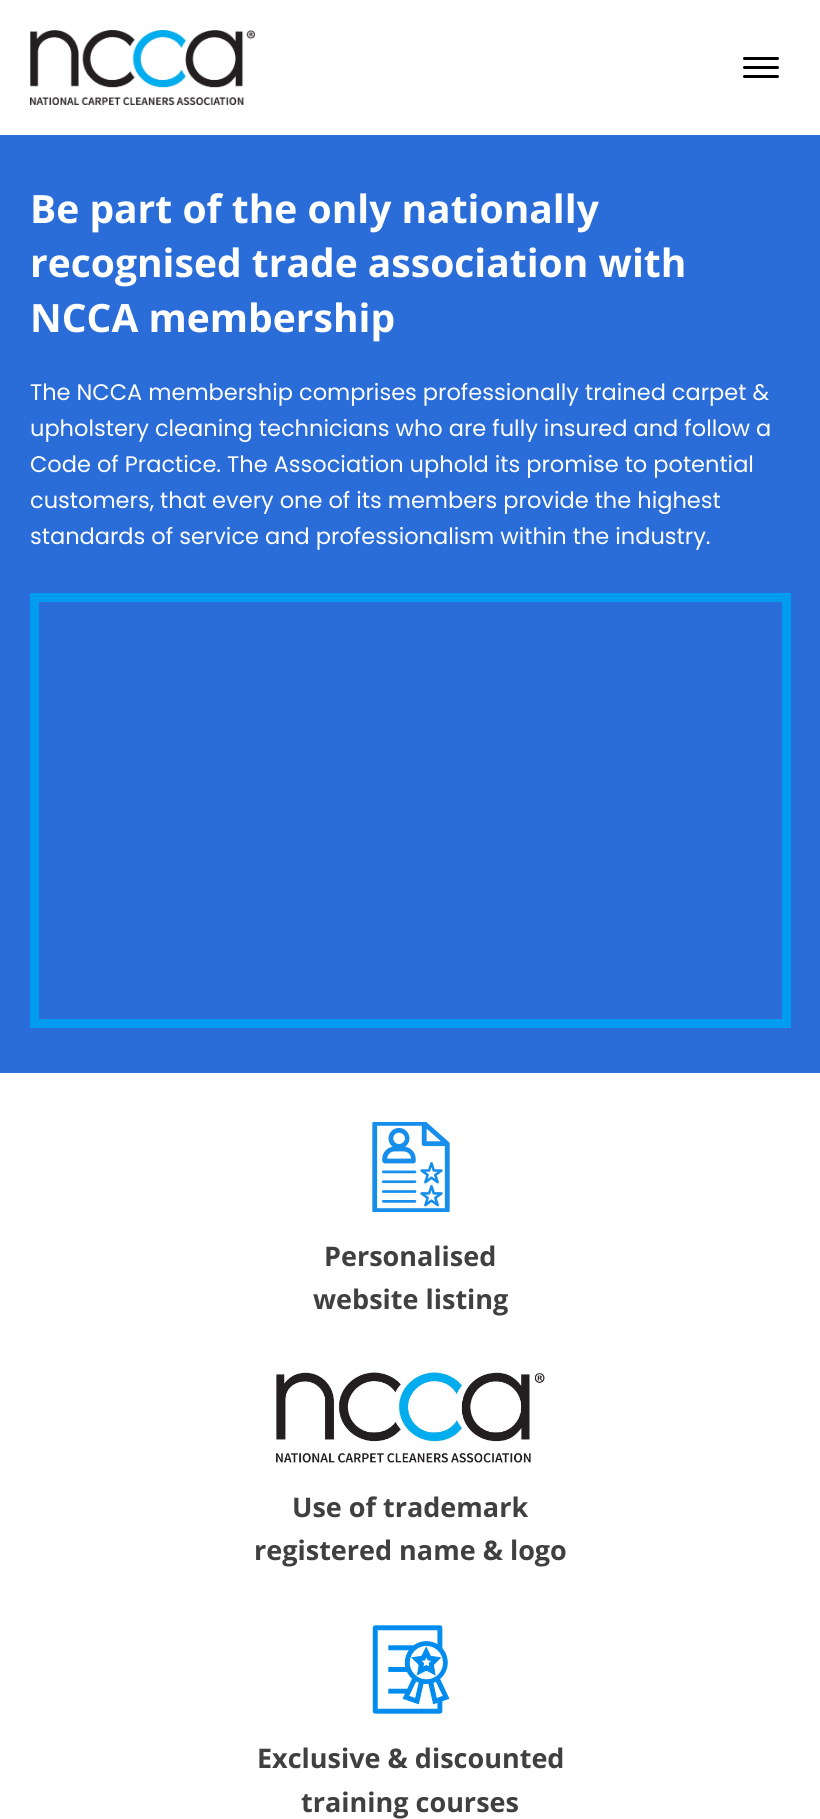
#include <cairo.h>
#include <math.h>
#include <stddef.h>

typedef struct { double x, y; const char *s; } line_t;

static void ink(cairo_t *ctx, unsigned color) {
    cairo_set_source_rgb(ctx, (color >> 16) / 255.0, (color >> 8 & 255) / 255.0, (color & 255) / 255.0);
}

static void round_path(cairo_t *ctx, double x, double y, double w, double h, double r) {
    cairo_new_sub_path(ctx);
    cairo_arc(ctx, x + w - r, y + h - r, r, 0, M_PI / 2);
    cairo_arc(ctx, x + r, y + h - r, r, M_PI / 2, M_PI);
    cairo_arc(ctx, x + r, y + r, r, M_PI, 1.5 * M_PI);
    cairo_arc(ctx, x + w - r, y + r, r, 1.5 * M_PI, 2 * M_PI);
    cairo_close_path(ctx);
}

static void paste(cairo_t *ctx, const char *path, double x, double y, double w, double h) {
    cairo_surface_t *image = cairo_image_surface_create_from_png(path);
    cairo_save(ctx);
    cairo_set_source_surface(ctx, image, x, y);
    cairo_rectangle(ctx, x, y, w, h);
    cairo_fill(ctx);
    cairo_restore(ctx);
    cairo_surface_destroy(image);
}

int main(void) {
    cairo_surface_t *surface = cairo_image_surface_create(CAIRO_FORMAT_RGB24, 820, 1819);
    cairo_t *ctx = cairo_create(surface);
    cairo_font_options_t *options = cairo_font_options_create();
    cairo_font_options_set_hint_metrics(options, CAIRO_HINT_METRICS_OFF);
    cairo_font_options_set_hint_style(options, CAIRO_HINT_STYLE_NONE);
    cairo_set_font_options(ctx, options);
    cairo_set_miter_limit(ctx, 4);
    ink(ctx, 0xFFFFFF);
    cairo_paint(ctx);
    paste(ctx, "media/1.png", 30, 30, 225, 75);
    ink(ctx, 0x000000);
    round_path(ctx, 743, 57, 36, 3, 1.5);
    cairo_fill(ctx);
    round_path(ctx, 743, 66, 36, 3, 1.5);
    cairo_fill(ctx);
    round_path(ctx, 743, 75, 36, 3, 1.5);
    cairo_fill(ctx);
    ink(ctx, 0x2A6DD8);
    cairo_rectangle(ctx, 0, 135, 820, 938);
    cairo_fill(ctx);
    cairo_select_font_face(ctx, "Open Sans", CAIRO_FONT_SLANT_NORMAL, CAIRO_FONT_WEIGHT_BOLD);
    cairo_set_font_size(ctx, 39);
    ink(ctx, 0xFFFFFF);
    {
        static const line_t items[] = {
            {30, 223, "Be part of the only nationally"},
            {30, 277, "recognised trade association with"},
            {30, 332, "NCCA membership"},
        };
        for (size_t i = 0; i < sizeof items / sizeof *items; i++) {
            cairo_move_to(ctx, items[i].x, items[i].y);
            cairo_show_text(ctx, items[i].s);
        }
    }
    cairo_select_font_face(ctx, "Poppins", CAIRO_FONT_SLANT_NORMAL, CAIRO_FONT_WEIGHT_NORMAL);
    cairo_set_font_size(ctx, 22.5);
    {
        static const line_t items[] = {
            {30, 400, "The NCCA membership comprises professionally trained carpet &"},
            {30, 436, "upholstery cleaning technicians who are fully insured and follow a"},
            {30, 472, "Code of Practice. The Association uphold its promise to potential"},
            {30, 508, "customers, that every one of its members provide the highest"},
            {30, 544, "standards of service and professionalism within the industry."},
        };
        for (size_t i = 0; i < sizeof items / sizeof *items; i++) {
            cairo_move_to(ctx, items[i].x, items[i].y);
            cairo_show_text(ctx, items[i].s);
        }
    }
    cairo_rectangle(ctx, 34.5, 597.5, 752, 426);
    ink(ctx, 0x009CF1);
    cairo_set_line_width(ctx, 9);
    cairo_stroke(ctx);
    paste(ctx, "media/2.png", 372, 1122, 78, 90);
    cairo_select_font_face(ctx, "Open Sans", CAIRO_FONT_SLANT_NORMAL, CAIRO_FONT_WEIGHT_BOLD);
    cairo_set_font_size(ctx, 27);
    ink(ctx, 0x404040);
    cairo_move_to(ctx, 324, 1266);
    cairo_show_text(ctx, "Personalised");
    cairo_move_to(ctx, 313, 1309);
    cairo_show_text(ctx, "website listing");
    paste(ctx, "media/3.png", 276, 1372, 269, 91);
    cairo_move_to(ctx, 292, 1517);
    cairo_show_text(ctx, "Use of trademark");
    cairo_move_to(ctx, 254, 1560);
    cairo_show_text(ctx, "registered name & logo");
    paste(ctx, "media/4.png", 372, 1625, 78, 89);
    cairo_move_to(ctx, 257, 1768);
    cairo_show_text(ctx, "Exclusive & discounted");
    cairo_move_to(ctx, 301, 1812);
    cairo_show_text(ctx, "training courses");
    cairo_surface_write_to_png(surface, "image.png");
    cairo_font_options_destroy(options);
    cairo_destroy(ctx);
    cairo_surface_destroy(surface);
    return 0;
}
